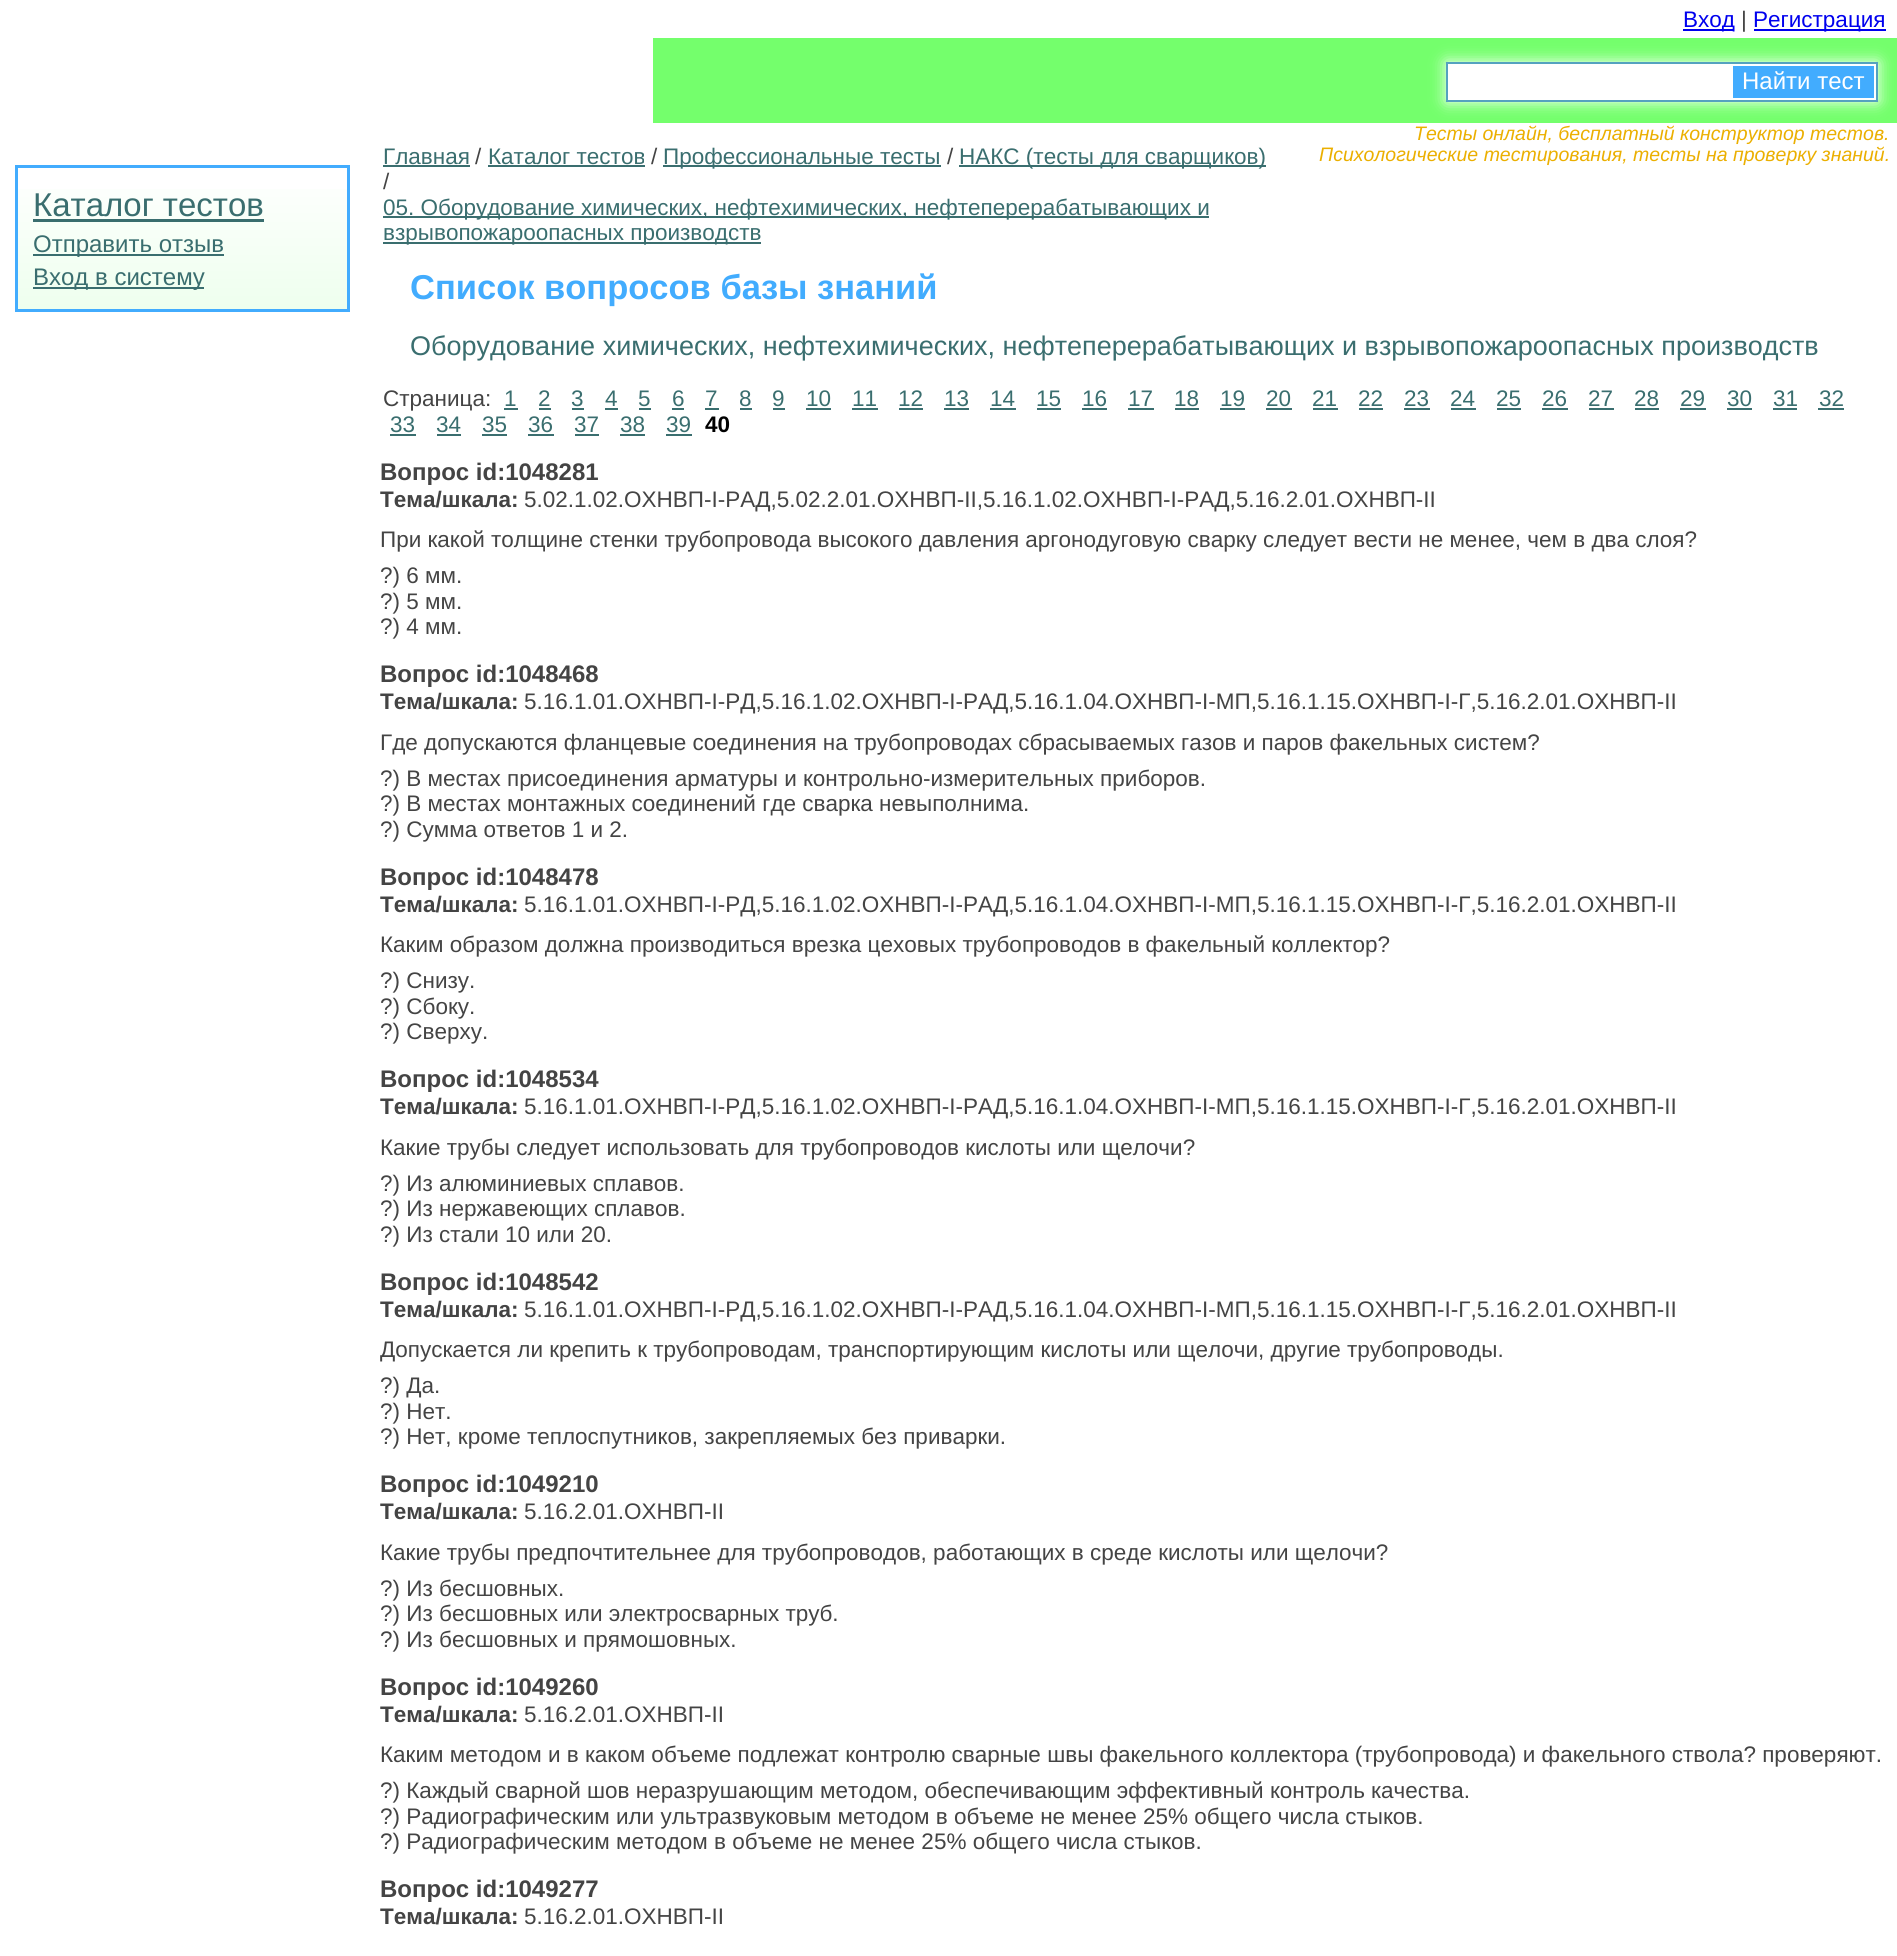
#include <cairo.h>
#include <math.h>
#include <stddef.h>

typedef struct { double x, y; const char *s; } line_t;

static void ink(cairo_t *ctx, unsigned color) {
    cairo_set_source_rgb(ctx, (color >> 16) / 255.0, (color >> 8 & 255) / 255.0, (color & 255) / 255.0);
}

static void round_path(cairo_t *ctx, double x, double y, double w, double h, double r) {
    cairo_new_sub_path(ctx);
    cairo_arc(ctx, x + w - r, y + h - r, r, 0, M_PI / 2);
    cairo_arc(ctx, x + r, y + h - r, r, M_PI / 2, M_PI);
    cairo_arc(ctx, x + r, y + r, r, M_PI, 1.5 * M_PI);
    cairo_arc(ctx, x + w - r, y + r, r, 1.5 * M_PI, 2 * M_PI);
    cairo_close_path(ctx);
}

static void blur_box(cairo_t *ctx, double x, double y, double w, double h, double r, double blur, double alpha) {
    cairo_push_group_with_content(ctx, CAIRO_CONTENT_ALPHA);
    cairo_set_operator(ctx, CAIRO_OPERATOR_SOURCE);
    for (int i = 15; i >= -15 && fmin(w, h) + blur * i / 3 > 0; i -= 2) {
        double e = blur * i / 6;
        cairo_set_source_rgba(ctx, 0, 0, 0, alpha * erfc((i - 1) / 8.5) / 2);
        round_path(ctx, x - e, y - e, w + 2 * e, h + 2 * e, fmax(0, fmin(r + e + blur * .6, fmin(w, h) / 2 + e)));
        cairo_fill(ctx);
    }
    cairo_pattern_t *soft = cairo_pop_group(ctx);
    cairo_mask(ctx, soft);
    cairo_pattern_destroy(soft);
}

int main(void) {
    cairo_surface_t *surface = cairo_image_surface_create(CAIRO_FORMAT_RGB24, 1897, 1956);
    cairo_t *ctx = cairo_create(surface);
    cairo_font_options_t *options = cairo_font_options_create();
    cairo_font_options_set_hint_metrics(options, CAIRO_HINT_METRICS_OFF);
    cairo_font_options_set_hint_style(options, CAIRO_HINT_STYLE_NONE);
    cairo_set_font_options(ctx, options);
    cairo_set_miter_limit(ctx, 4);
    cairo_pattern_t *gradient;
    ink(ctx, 0xFFFFFF);
    cairo_paint(ctx);
    ink(ctx, 0x0000EE);
    cairo_rectangle(ctx, 1683, 29, 51, 2);
    cairo_fill(ctx);
    cairo_select_font_face(ctx, "Liberation Sans", CAIRO_FONT_SLANT_NORMAL, CAIRO_FONT_WEIGHT_NORMAL);
    cairo_set_font_size(ctx, 22.5);
    cairo_move_to(ctx, 1683, 27);
    cairo_show_text(ctx, "Вход");
    ink(ctx, 0x444444);
    cairo_move_to(ctx, 1741, 27);
    cairo_show_text(ctx, "|");
    ink(ctx, 0x0000EE);
    cairo_rectangle(ctx, 1754, 29, 132, 2);
    cairo_fill(ctx);
    cairo_move_to(ctx, 1753, 27);
    cairo_show_text(ctx, "Регистрация");
    ink(ctx, 0x74FF6C);
    cairo_rectangle(ctx, 653, 38, 1244, 85);
    cairo_fill(ctx);
    ink(ctx, 0xFFFFFF);
    blur_box(ctx, 1446, 62, 432, 40, 0, 7.5, 1);
    ink(ctx, 0xFFFFFF);
    cairo_rectangle(ctx, 1447, 63, 430, 38);
    cairo_fill_preserve(ctx);
    ink(ctx, 0x55A2BF);
    cairo_stroke(ctx);
    ink(ctx, 0x42ACFE);
    cairo_rectangle(ctx, 1733, 66, 141, 32);
    cairo_fill(ctx);
    cairo_set_font_size(ctx, 24);
    ink(ctx, 0xFFFFFF);
    cairo_move_to(ctx, 1742, 89);
    cairo_show_text(ctx, "Найти тест");
    cairo_select_font_face(ctx, "Liberation Sans", CAIRO_FONT_SLANT_ITALIC, CAIRO_FONT_WEIGHT_NORMAL);
    cairo_set_font_size(ctx, 19.5);
    ink(ctx, 0xEBAF00);
    cairo_move_to(ctx, 1414, 140);
    cairo_show_text(ctx, "Тесты онлайн, бесплатный конструктор тестов.");
    cairo_move_to(ctx, 1319, 161);
    cairo_show_text(ctx, "Психологические тестирования, тесты на проверку знаний.");
    gradient = cairo_pattern_create_linear(182, 168, 182, 309);
    cairo_pattern_add_color_stop_rgba(gradient, 0, 1, 1, 1, 1);
    cairo_pattern_add_color_stop_rgba(gradient, 1, 0.933, 1, 0.933, 1);
    cairo_set_source(ctx, gradient);
    cairo_pattern_destroy(gradient);
    cairo_rectangle(ctx, 18, 189, 329, 120);
    cairo_fill(ctx);
    cairo_rectangle(ctx, 16.5, 166.5, 332, 144);
    ink(ctx, 0x42ACFE);
    cairo_set_line_width(ctx, 3);
    cairo_stroke(ctx);
    cairo_select_font_face(ctx, "Liberation Sans", CAIRO_FONT_SLANT_NORMAL, CAIRO_FONT_WEIGHT_NORMAL);
    cairo_set_font_size(ctx, 33);
    ink(ctx, 0x3A6E6F);
    cairo_move_to(ctx, 33, 216);
    cairo_show_text(ctx, "Каталог тестов");
    cairo_rectangle(ctx, 33, 219, 231, 3);
    cairo_fill(ctx);
    cairo_rectangle(ctx, 33, 254, 191, 2);
    cairo_fill(ctx);
    cairo_set_font_size(ctx, 24);
    cairo_move_to(ctx, 33, 252);
    cairo_show_text(ctx, "Отправить отзыв");
    cairo_rectangle(ctx, 33, 287, 171, 2);
    cairo_fill(ctx);
    cairo_move_to(ctx, 33, 285);
    cairo_show_text(ctx, "Вход в систему");
    cairo_set_font_size(ctx, 22.5);
    cairo_move_to(ctx, 383, 164);
    cairo_show_text(ctx, "Главная");
    cairo_rectangle(ctx, 383, 165, 87, 2);
    cairo_fill(ctx);
    ink(ctx, 0x444444);
    cairo_move_to(ctx, 475, 164);
    cairo_show_text(ctx, "/");
    ink(ctx, 0x3A6E6F);
    cairo_move_to(ctx, 488, 164);
    cairo_show_text(ctx, "Каталог тестов");
    cairo_rectangle(ctx, 488, 165, 157, 2);
    cairo_fill(ctx);
    ink(ctx, 0x444444);
    cairo_move_to(ctx, 651, 164);
    cairo_show_text(ctx, "/");
    ink(ctx, 0x3A6E6F);
    cairo_rectangle(ctx, 663, 165, 278, 2);
    cairo_fill(ctx);
    cairo_move_to(ctx, 663, 164);
    cairo_show_text(ctx, "Профессиональные тесты");
    ink(ctx, 0x444444);
    cairo_move_to(ctx, 947, 164);
    cairo_show_text(ctx, "/");
    ink(ctx, 0x3A6E6F);
    cairo_rectangle(ctx, 959, 165, 307, 2);
    cairo_fill(ctx);
    cairo_move_to(ctx, 959, 164);
    cairo_show_text(ctx, "НАКС (тесты для сварщиков)");
    ink(ctx, 0x444444);
    cairo_move_to(ctx, 383, 189);
    cairo_show_text(ctx, "/");
    ink(ctx, 0x3A6E6F);
    cairo_rectangle(ctx, 383, 216, 826, 2);
    cairo_fill(ctx);
    cairo_move_to(ctx, 383, 215);
    cairo_show_text(ctx, "05. Оборудование химических, нефтехимических, нефтеперерабатывающих и");
    cairo_rectangle(ctx, 383, 242, 378, 2);
    cairo_fill(ctx);
    cairo_move_to(ctx, 383, 240);
    cairo_show_text(ctx, "взрывопожароопасных производств");
    cairo_select_font_face(ctx, "Liberation Sans", CAIRO_FONT_SLANT_NORMAL, CAIRO_FONT_WEIGHT_BOLD);
    cairo_set_font_size(ctx, 34.5);
    ink(ctx, 0x42ACFE);
    cairo_move_to(ctx, 410, 299);
    cairo_show_text(ctx, "Список вопросов базы знаний");
    cairo_select_font_face(ctx, "Liberation Sans", CAIRO_FONT_SLANT_NORMAL, CAIRO_FONT_WEIGHT_NORMAL);
    cairo_set_font_size(ctx, 27);
    ink(ctx, 0x3A6E6F);
    cairo_move_to(ctx, 410, 355);
    cairo_show_text(ctx, "Оборудование химических, нефтехимических, нефтеперерабатывающих и взрывопожароопасных производств");
    cairo_set_font_size(ctx, 22.5);
    ink(ctx, 0x444444);
    cairo_move_to(ctx, 383, 406);
    cairo_show_text(ctx, "Страница:");
    ink(ctx, 0x3A6E6F);
    cairo_move_to(ctx, 504, 406);
    cairo_show_text(ctx, "1");
    cairo_rectangle(ctx, 504, 408, 14, 2);
    cairo_fill(ctx);
    cairo_move_to(ctx, 538, 406);
    cairo_show_text(ctx, "2");
    cairo_rectangle(ctx, 539, 408, 12, 2);
    cairo_fill(ctx);
    cairo_move_to(ctx, 571, 406);
    cairo_show_text(ctx, "3");
    cairo_rectangle(ctx, 572, 408, 12, 2);
    cairo_fill(ctx);
    cairo_move_to(ctx, 605, 406);
    cairo_show_text(ctx, "4");
    cairo_rectangle(ctx, 605, 408, 13, 2);
    cairo_fill(ctx);
    cairo_move_to(ctx, 638, 406);
    cairo_show_text(ctx, "5");
    cairo_rectangle(ctx, 639, 408, 12, 2);
    cairo_fill(ctx);
    cairo_move_to(ctx, 672, 406);
    cairo_show_text(ctx, "6");
    cairo_rectangle(ctx, 672, 408, 12, 2);
    cairo_fill(ctx);
    cairo_move_to(ctx, 705, 406);
    cairo_show_text(ctx, "7");
    cairo_rectangle(ctx, 705, 408, 14, 2);
    cairo_fill(ctx);
    cairo_move_to(ctx, 739, 406);
    cairo_show_text(ctx, "8");
    cairo_rectangle(ctx, 740, 408, 12, 2);
    cairo_fill(ctx);
    cairo_move_to(ctx, 772, 406);
    cairo_show_text(ctx, "9");
    cairo_rectangle(ctx, 773, 408, 12, 2);
    cairo_fill(ctx);
    cairo_move_to(ctx, 806, 406);
    cairo_show_text(ctx, "10");
    cairo_rectangle(ctx, 806, 408, 25, 2);
    cairo_fill(ctx);
    cairo_move_to(ctx, 852, 406);
    cairo_show_text(ctx, "11");
    cairo_rectangle(ctx, 852, 408, 26, 2);
    cairo_fill(ctx);
    cairo_move_to(ctx, 898, 406);
    cairo_show_text(ctx, "12");
    cairo_rectangle(ctx, 899, 408, 24, 2);
    cairo_fill(ctx);
    cairo_move_to(ctx, 944, 406);
    cairo_show_text(ctx, "13");
    cairo_rectangle(ctx, 944, 408, 25, 2);
    cairo_fill(ctx);
    cairo_move_to(ctx, 990, 406);
    cairo_show_text(ctx, "14");
    cairo_rectangle(ctx, 990, 408, 26, 2);
    cairo_fill(ctx);
    cairo_move_to(ctx, 1036, 406);
    cairo_show_text(ctx, "15");
    cairo_rectangle(ctx, 1037, 408, 24, 2);
    cairo_fill(ctx);
    cairo_move_to(ctx, 1082, 406);
    cairo_show_text(ctx, "16");
    cairo_rectangle(ctx, 1082, 408, 25, 2);
    cairo_fill(ctx);
    cairo_move_to(ctx, 1128, 406);
    cairo_show_text(ctx, "17");
    cairo_rectangle(ctx, 1128, 408, 26, 2);
    cairo_fill(ctx);
    cairo_move_to(ctx, 1174, 406);
    cairo_show_text(ctx, "18");
    cairo_rectangle(ctx, 1175, 408, 24, 2);
    cairo_fill(ctx);
    cairo_move_to(ctx, 1220, 406);
    cairo_show_text(ctx, "19");
    cairo_rectangle(ctx, 1220, 408, 25, 2);
    cairo_fill(ctx);
    cairo_move_to(ctx, 1266, 406);
    cairo_show_text(ctx, "20");
    cairo_rectangle(ctx, 1266, 408, 26, 2);
    cairo_fill(ctx);
    cairo_move_to(ctx, 1312, 406);
    cairo_show_text(ctx, "21");
    cairo_rectangle(ctx, 1313, 408, 25, 2);
    cairo_fill(ctx);
    cairo_move_to(ctx, 1358, 406);
    cairo_show_text(ctx, "22");
    cairo_rectangle(ctx, 1359, 408, 24, 2);
    cairo_fill(ctx);
    cairo_move_to(ctx, 1404, 406);
    cairo_show_text(ctx, "23");
    cairo_rectangle(ctx, 1404, 408, 26, 2);
    cairo_fill(ctx);
    cairo_move_to(ctx, 1450, 406);
    cairo_show_text(ctx, "24");
    cairo_rectangle(ctx, 1451, 408, 25, 2);
    cairo_fill(ctx);
    cairo_move_to(ctx, 1496, 406);
    cairo_show_text(ctx, "25");
    cairo_rectangle(ctx, 1497, 408, 24, 2);
    cairo_fill(ctx);
    cairo_move_to(ctx, 1542, 406);
    cairo_show_text(ctx, "26");
    cairo_rectangle(ctx, 1542, 408, 26, 2);
    cairo_fill(ctx);
    cairo_move_to(ctx, 1588, 406);
    cairo_show_text(ctx, "27");
    cairo_rectangle(ctx, 1589, 408, 25, 2);
    cairo_fill(ctx);
    cairo_move_to(ctx, 1634, 406);
    cairo_show_text(ctx, "28");
    cairo_rectangle(ctx, 1635, 408, 24, 2);
    cairo_fill(ctx);
    cairo_move_to(ctx, 1680, 406);
    cairo_show_text(ctx, "29");
    cairo_rectangle(ctx, 1680, 408, 26, 2);
    cairo_fill(ctx);
    cairo_move_to(ctx, 1727, 406);
    cairo_show_text(ctx, "30");
    cairo_rectangle(ctx, 1727, 408, 25, 2);
    cairo_fill(ctx);
    cairo_move_to(ctx, 1773, 406);
    cairo_show_text(ctx, "31");
    cairo_rectangle(ctx, 1773, 408, 24, 2);
    cairo_fill(ctx);
    cairo_move_to(ctx, 1819, 406);
    cairo_show_text(ctx, "32");
    cairo_rectangle(ctx, 1818, 408, 26, 2);
    cairo_fill(ctx);
    cairo_move_to(ctx, 390, 432);
    cairo_show_text(ctx, "33");
    cairo_rectangle(ctx, 390, 434, 26, 2);
    cairo_fill(ctx);
    cairo_move_to(ctx, 436, 432);
    cairo_show_text(ctx, "34");
    cairo_rectangle(ctx, 437, 434, 24, 2);
    cairo_fill(ctx);
    cairo_move_to(ctx, 482, 432);
    cairo_show_text(ctx, "35");
    cairo_rectangle(ctx, 482, 434, 25, 2);
    cairo_fill(ctx);
    cairo_move_to(ctx, 528, 432);
    cairo_show_text(ctx, "36");
    cairo_rectangle(ctx, 528, 434, 26, 2);
    cairo_fill(ctx);
    cairo_move_to(ctx, 574, 432);
    cairo_show_text(ctx, "37");
    cairo_rectangle(ctx, 575, 434, 24, 2);
    cairo_fill(ctx);
    cairo_move_to(ctx, 620, 432);
    cairo_show_text(ctx, "38");
    cairo_rectangle(ctx, 620, 434, 25, 2);
    cairo_fill(ctx);
    cairo_move_to(ctx, 666, 432);
    cairo_show_text(ctx, "39");
    cairo_rectangle(ctx, 666, 434, 26, 2);
    cairo_fill(ctx);
    cairo_select_font_face(ctx, "Liberation Sans", CAIRO_FONT_SLANT_NORMAL, CAIRO_FONT_WEIGHT_BOLD);
    ink(ctx, 0x000000);
    cairo_move_to(ctx, 705, 432);
    cairo_show_text(ctx, "40");
    cairo_set_font_size(ctx, 24);
    ink(ctx, 0x444444);
    cairo_move_to(ctx, 380, 480);
    cairo_show_text(ctx, "Вопрос id:1048281");
    cairo_set_font_size(ctx, 22.5);
    cairo_move_to(ctx, 380, 507);
    cairo_show_text(ctx, "Тема/шкала:");
    cairo_select_font_face(ctx, "Liberation Sans", CAIRO_FONT_SLANT_NORMAL, CAIRO_FONT_WEIGHT_NORMAL);
    {
        static const line_t items[] = {
            {524, 507, "5.02.1.02.ОХНВП-I-РАД,5.02.2.01.ОХНВП-II,5.16.1.02.ОХНВП-I-РАД,5.16.2.01.ОХНВП-II"},
            {380, 547, "При какой толщине стенки трубопровода высокого давления аргонодуговую сварку следует вести не менее, чем в два слоя?"},
            {380, 583, "?) 6 мм."},
            {380, 609, "?) 5 мм."},
            {380, 634, "?) 4 мм."},
        };
        for (size_t i = 0; i < sizeof items / sizeof *items; i++) {
            cairo_move_to(ctx, items[i].x, items[i].y);
            cairo_show_text(ctx, items[i].s);
        }
    }
    cairo_select_font_face(ctx, "Liberation Sans", CAIRO_FONT_SLANT_NORMAL, CAIRO_FONT_WEIGHT_BOLD);
    cairo_set_font_size(ctx, 24);
    cairo_move_to(ctx, 380, 682);
    cairo_show_text(ctx, "Вопрос id:1048468");
    cairo_set_font_size(ctx, 22.5);
    cairo_move_to(ctx, 380, 709);
    cairo_show_text(ctx, "Тема/шкала:");
    cairo_select_font_face(ctx, "Liberation Sans", CAIRO_FONT_SLANT_NORMAL, CAIRO_FONT_WEIGHT_NORMAL);
    {
        static const line_t items[] = {
            {524, 709, "5.16.1.01.ОХНВП-I-РД,5.16.1.02.ОХНВП-I-РАД,5.16.1.04.ОХНВП-I-МП,5.16.1.15.ОХНВП-I-Г,5.16.2.01.ОХНВП-II"},
            {380, 750, "Где допускаются фланцевые соединения на трубопроводах сбрасываемых газов и паров факельных систем?"},
            {380, 786, "?) В местах присоединения арматуры и контрольно-измерительных приборов."},
            {380, 811, "?) В местах монтажных соединений где сварка невыполнима."},
            {380, 837, "?) Сумма ответов 1 и 2."},
        };
        for (size_t i = 0; i < sizeof items / sizeof *items; i++) {
            cairo_move_to(ctx, items[i].x, items[i].y);
            cairo_show_text(ctx, items[i].s);
        }
    }
    cairo_select_font_face(ctx, "Liberation Sans", CAIRO_FONT_SLANT_NORMAL, CAIRO_FONT_WEIGHT_BOLD);
    cairo_set_font_size(ctx, 24);
    cairo_move_to(ctx, 380, 885);
    cairo_show_text(ctx, "Вопрос id:1048478");
    cairo_set_font_size(ctx, 22.5);
    cairo_move_to(ctx, 380, 912);
    cairo_show_text(ctx, "Тема/шкала:");
    cairo_select_font_face(ctx, "Liberation Sans", CAIRO_FONT_SLANT_NORMAL, CAIRO_FONT_WEIGHT_NORMAL);
    {
        static const line_t items[] = {
            {524, 912, "5.16.1.01.ОХНВП-I-РД,5.16.1.02.ОХНВП-I-РАД,5.16.1.04.ОХНВП-I-МП,5.16.1.15.ОХНВП-I-Г,5.16.2.01.ОХНВП-II"},
            {380, 952, "Каким образом должна производиться врезка цеховых трубопроводов в факельный коллектор?"},
            {380, 988, "?) Снизу."},
            {380, 1014, "?) Сбоку."},
            {380, 1039, "?) Сверху."},
        };
        for (size_t i = 0; i < sizeof items / sizeof *items; i++) {
            cairo_move_to(ctx, items[i].x, items[i].y);
            cairo_show_text(ctx, items[i].s);
        }
    }
    cairo_select_font_face(ctx, "Liberation Sans", CAIRO_FONT_SLANT_NORMAL, CAIRO_FONT_WEIGHT_BOLD);
    cairo_set_font_size(ctx, 24);
    cairo_move_to(ctx, 380, 1087);
    cairo_show_text(ctx, "Вопрос id:1048534");
    cairo_set_font_size(ctx, 22.5);
    cairo_move_to(ctx, 380, 1114);
    cairo_show_text(ctx, "Тема/шкала:");
    cairo_select_font_face(ctx, "Liberation Sans", CAIRO_FONT_SLANT_NORMAL, CAIRO_FONT_WEIGHT_NORMAL);
    {
        static const line_t items[] = {
            {524, 1114, "5.16.1.01.ОХНВП-I-РД,5.16.1.02.ОХНВП-I-РАД,5.16.1.04.ОХНВП-I-МП,5.16.1.15.ОХНВП-I-Г,5.16.2.01.ОХНВП-II"},
            {380, 1155, "Какие трубы следует использовать для трубопроводов кислоты или щелочи?"},
            {380, 1191, "?) Из алюминиевых сплавов."},
            {380, 1216, "?) Из нержавеющих сплавов."},
            {380, 1242, "?) Из стали 10 или 20."},
        };
        for (size_t i = 0; i < sizeof items / sizeof *items; i++) {
            cairo_move_to(ctx, items[i].x, items[i].y);
            cairo_show_text(ctx, items[i].s);
        }
    }
    cairo_select_font_face(ctx, "Liberation Sans", CAIRO_FONT_SLANT_NORMAL, CAIRO_FONT_WEIGHT_BOLD);
    cairo_set_font_size(ctx, 24);
    cairo_move_to(ctx, 380, 1290);
    cairo_show_text(ctx, "Вопрос id:1048542");
    cairo_set_font_size(ctx, 22.5);
    cairo_move_to(ctx, 380, 1317);
    cairo_show_text(ctx, "Тема/шкала:");
    cairo_select_font_face(ctx, "Liberation Sans", CAIRO_FONT_SLANT_NORMAL, CAIRO_FONT_WEIGHT_NORMAL);
    {
        static const line_t items[] = {
            {524, 1317, "5.16.1.01.ОХНВП-I-РД,5.16.1.02.ОХНВП-I-РАД,5.16.1.04.ОХНВП-I-МП,5.16.1.15.ОХНВП-I-Г,5.16.2.01.ОХНВП-II"},
            {380, 1357, "Допускается ли крепить к трубопроводам, транспортирующим кислоты или щелочи, другие трубопроводы."},
            {380, 1393, "?) Да."},
            {380, 1419, "?) Нет."},
            {380, 1444, "?) Нет, кроме теплоспутников, закрепляемых без приварки."},
        };
        for (size_t i = 0; i < sizeof items / sizeof *items; i++) {
            cairo_move_to(ctx, items[i].x, items[i].y);
            cairo_show_text(ctx, items[i].s);
        }
    }
    cairo_select_font_face(ctx, "Liberation Sans", CAIRO_FONT_SLANT_NORMAL, CAIRO_FONT_WEIGHT_BOLD);
    cairo_set_font_size(ctx, 24);
    cairo_move_to(ctx, 380, 1492);
    cairo_show_text(ctx, "Вопрос id:1049210");
    cairo_set_font_size(ctx, 22.5);
    cairo_move_to(ctx, 380, 1519);
    cairo_show_text(ctx, "Тема/шкала:");
    cairo_select_font_face(ctx, "Liberation Sans", CAIRO_FONT_SLANT_NORMAL, CAIRO_FONT_WEIGHT_NORMAL);
    {
        static const line_t items[] = {
            {524, 1519, "5.16.2.01.ОХНВП-II"},
            {380, 1560, "Какие трубы предпочтительнее для трубопроводов, работающих в среде кислоты или щелочи?"},
            {380, 1596, "?) Из бесшовных."},
            {380, 1621, "?) Из бесшовных или электросварных труб."},
            {380, 1647, "?) Из бесшовных и прямошовных."},
        };
        for (size_t i = 0; i < sizeof items / sizeof *items; i++) {
            cairo_move_to(ctx, items[i].x, items[i].y);
            cairo_show_text(ctx, items[i].s);
        }
    }
    cairo_select_font_face(ctx, "Liberation Sans", CAIRO_FONT_SLANT_NORMAL, CAIRO_FONT_WEIGHT_BOLD);
    cairo_set_font_size(ctx, 24);
    cairo_move_to(ctx, 380, 1695);
    cairo_show_text(ctx, "Вопрос id:1049260");
    cairo_set_font_size(ctx, 22.5);
    cairo_move_to(ctx, 380, 1722);
    cairo_show_text(ctx, "Тема/шкала:");
    cairo_select_font_face(ctx, "Liberation Sans", CAIRO_FONT_SLANT_NORMAL, CAIRO_FONT_WEIGHT_NORMAL);
    {
        static const line_t items[] = {
            {524, 1722, "5.16.2.01.ОХНВП-II"},
            {380, 1762, "Каким методом и в каком объеме подлежат контролю сварные швы факельного коллектора (трубопровода) и факельного ствола? проверяют."},
            {380, 1798, "?) Каждый сварной шов неразрушающим методом, обеспечивающим эффективный контроль качества."},
            {380, 1824, "?) Радиографическим или ультразвуковым методом в объеме не менее 25% общего числа стыков."},
            {380, 1849, "?) Радиографическим методом в объеме не менее 25% общего числа стыков."},
        };
        for (size_t i = 0; i < sizeof items / sizeof *items; i++) {
            cairo_move_to(ctx, items[i].x, items[i].y);
            cairo_show_text(ctx, items[i].s);
        }
    }
    cairo_select_font_face(ctx, "Liberation Sans", CAIRO_FONT_SLANT_NORMAL, CAIRO_FONT_WEIGHT_BOLD);
    cairo_set_font_size(ctx, 24);
    cairo_move_to(ctx, 380, 1897);
    cairo_show_text(ctx, "Вопрос id:1049277");
    cairo_set_font_size(ctx, 22.5);
    cairo_move_to(ctx, 380, 1924);
    cairo_show_text(ctx, "Тема/шкала:");
    cairo_select_font_face(ctx, "Liberation Sans", CAIRO_FONT_SLANT_NORMAL, CAIRO_FONT_WEIGHT_NORMAL);
    cairo_move_to(ctx, 524, 1924);
    cairo_show_text(ctx, "5.16.2.01.ОХНВП-II");
    cairo_surface_write_to_png(surface, "image.png");
    cairo_font_options_destroy(options);
    cairo_destroy(ctx);
    cairo_surface_destroy(surface);
    return 0;
}
